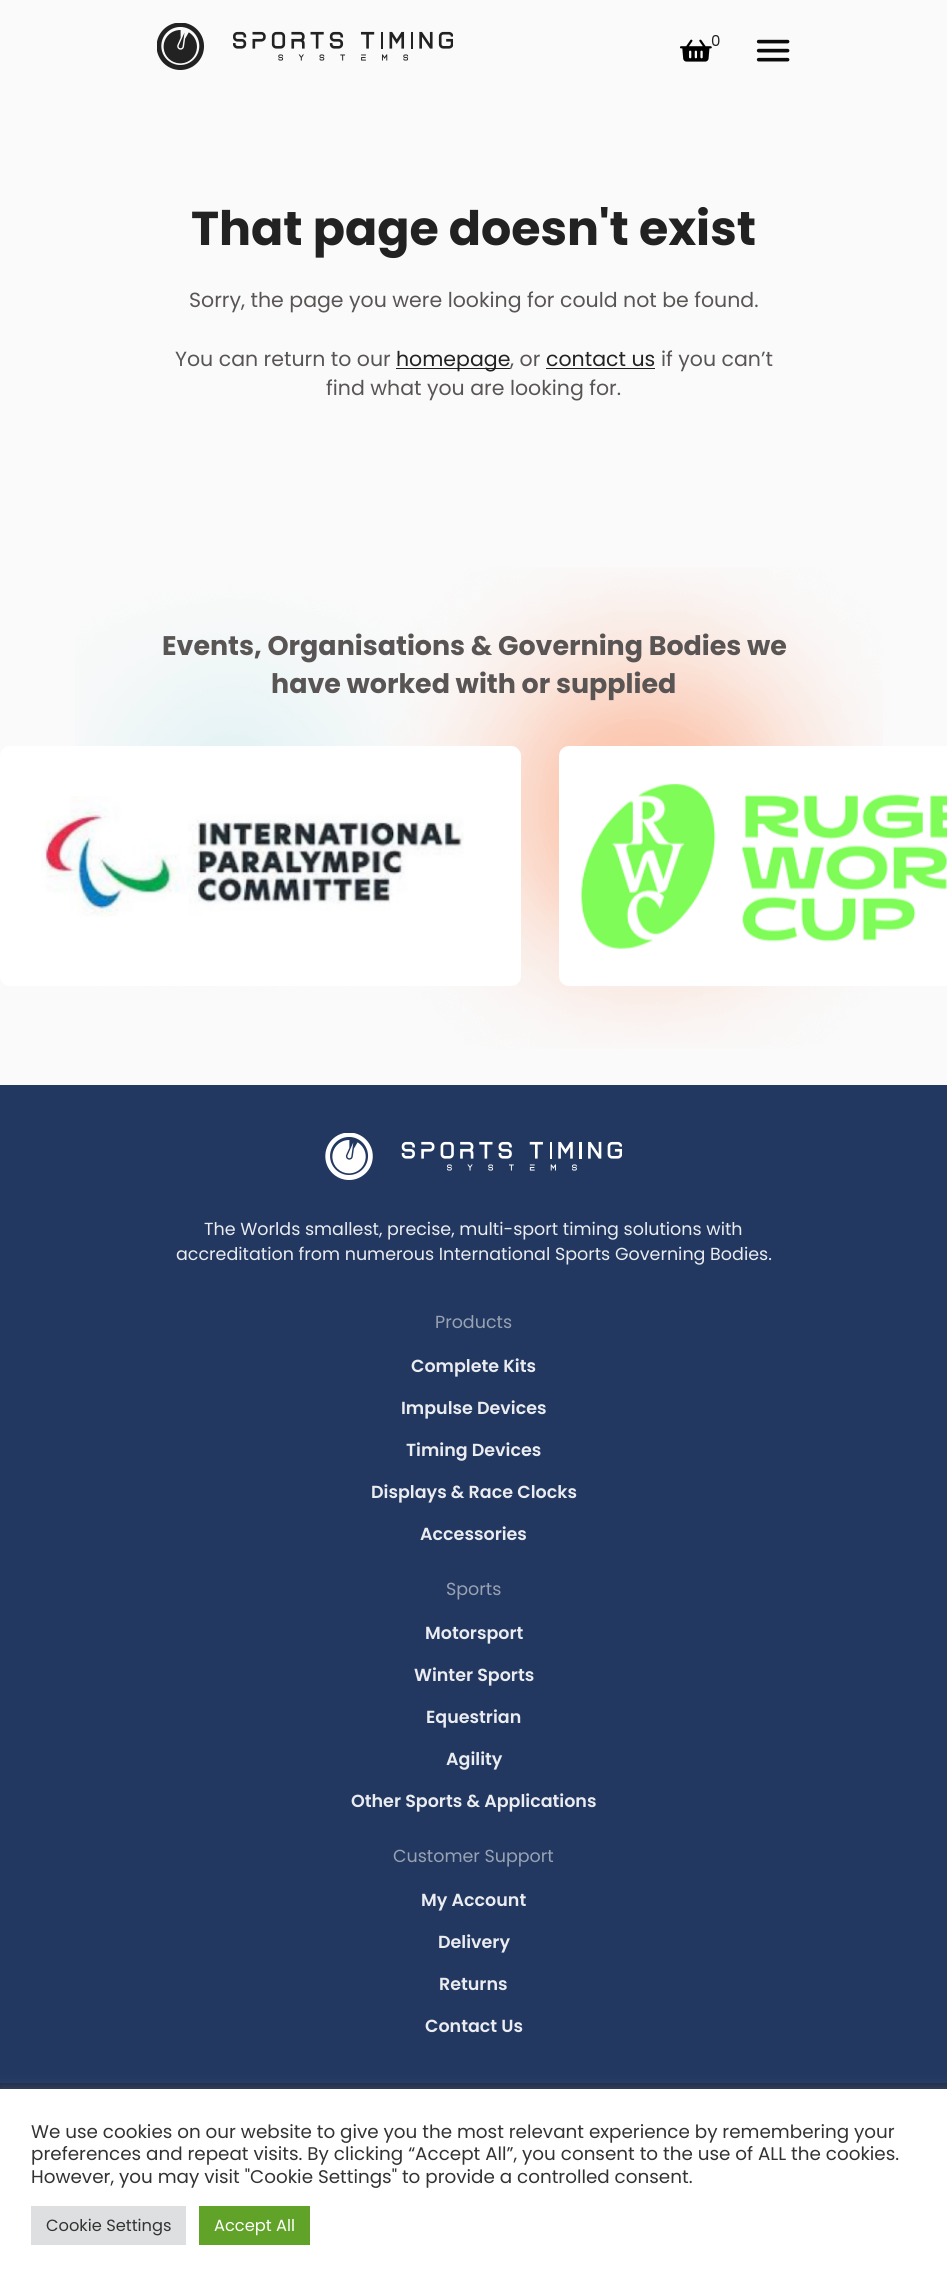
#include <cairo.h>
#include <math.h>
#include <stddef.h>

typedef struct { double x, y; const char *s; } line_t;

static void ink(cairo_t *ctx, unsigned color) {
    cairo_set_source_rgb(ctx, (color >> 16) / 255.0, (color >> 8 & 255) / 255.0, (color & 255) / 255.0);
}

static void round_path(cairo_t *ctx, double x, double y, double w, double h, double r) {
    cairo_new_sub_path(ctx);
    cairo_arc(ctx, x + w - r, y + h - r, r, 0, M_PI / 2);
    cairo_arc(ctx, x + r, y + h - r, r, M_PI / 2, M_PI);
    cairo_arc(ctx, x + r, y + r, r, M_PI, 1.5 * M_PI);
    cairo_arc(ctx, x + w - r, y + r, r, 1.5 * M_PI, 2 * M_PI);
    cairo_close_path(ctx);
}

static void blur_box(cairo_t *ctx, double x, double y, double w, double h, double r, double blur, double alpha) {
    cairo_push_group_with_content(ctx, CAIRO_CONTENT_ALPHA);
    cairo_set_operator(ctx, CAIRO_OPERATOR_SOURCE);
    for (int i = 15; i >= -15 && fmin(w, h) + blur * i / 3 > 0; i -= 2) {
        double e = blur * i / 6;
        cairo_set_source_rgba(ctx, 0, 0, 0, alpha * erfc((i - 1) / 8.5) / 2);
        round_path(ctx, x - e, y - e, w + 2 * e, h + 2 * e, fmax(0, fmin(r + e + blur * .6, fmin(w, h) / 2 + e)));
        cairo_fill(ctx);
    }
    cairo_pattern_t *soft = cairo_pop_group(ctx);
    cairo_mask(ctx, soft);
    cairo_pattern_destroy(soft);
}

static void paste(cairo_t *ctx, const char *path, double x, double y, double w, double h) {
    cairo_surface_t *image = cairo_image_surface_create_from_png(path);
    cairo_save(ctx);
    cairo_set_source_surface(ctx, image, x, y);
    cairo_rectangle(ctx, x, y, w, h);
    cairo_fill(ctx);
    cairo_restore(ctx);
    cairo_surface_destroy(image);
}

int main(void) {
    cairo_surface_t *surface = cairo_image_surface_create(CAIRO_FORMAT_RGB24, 947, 2282);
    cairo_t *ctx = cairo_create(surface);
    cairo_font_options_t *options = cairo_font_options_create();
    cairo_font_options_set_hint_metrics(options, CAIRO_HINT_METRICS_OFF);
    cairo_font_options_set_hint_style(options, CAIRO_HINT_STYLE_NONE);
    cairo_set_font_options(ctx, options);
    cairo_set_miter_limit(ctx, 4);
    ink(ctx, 0xFAFAFA);
    cairo_paint(ctx);
    paste(ctx, "media/1.png", 157, 23, 296, 47);
    paste(ctx, "media/2.png", 680, 39, 32, 23);
    cairo_select_font_face(ctx, "Poppins", CAIRO_FONT_SLANT_NORMAL, CAIRO_FONT_WEIGHT_NORMAL);
    cairo_set_font_size(ctx, 15);
    ink(ctx, 0x222222);
    cairo_move_to(ctx, 711, 46);
    cairo_show_text(ctx, "0");
    paste(ctx, "media/3.png", 756, 39, 34, 23);
    cairo_select_font_face(ctx, "Poppins", CAIRO_FONT_SLANT_NORMAL, CAIRO_FONT_WEIGHT_BOLD);
    cairo_set_font_size(ctx, 47.5);
    cairo_move_to(ctx, 191, 245);
    cairo_show_text(ctx, "That page doesn't exist");
    cairo_select_font_face(ctx, "Poppins", CAIRO_FONT_SLANT_NORMAL, CAIRO_FONT_WEIGHT_NORMAL);
    cairo_set_font_size(ctx, 20.5);
    ink(ctx, 0x5A5555);
    cairo_move_to(ctx, 189, 307);
    cairo_show_text(ctx, "Sorry, the page you were looking for could not be found.");
    cairo_move_to(ctx, 175, 366);
    cairo_show_text(ctx, "You can return to our");
    ink(ctx, 0x222222);
    cairo_rectangle(ctx, 396, 368, 114, 1);
    cairo_fill(ctx);
    cairo_move_to(ctx, 396, 366);
    cairo_show_text(ctx, "homepage");
    ink(ctx, 0x5A5555);
    cairo_move_to(ctx, 510, 366);
    cairo_show_text(ctx, ", or");
    ink(ctx, 0x222222);
    cairo_move_to(ctx, 546, 366);
    cairo_show_text(ctx, "contact us");
    cairo_rectangle(ctx, 546, 368, 109, 1);
    cairo_fill(ctx);
    ink(ctx, 0x5A5555);
    cairo_move_to(ctx, 661, 366);
    cairo_show_text(ctx, "if you can’t");
    cairo_move_to(ctx, 326, 395);
    cairo_show_text(ctx, "find what you are looking for.");
    paste(ctx, "media/4.png", 75, 567, 808, 482);
    cairo_select_font_face(ctx, "Poppins", CAIRO_FONT_SLANT_NORMAL, CAIRO_FONT_WEIGHT_BOLD);
    cairo_set_font_size(ctx, 26.9);
    cairo_move_to(ctx, 162, 655);
    cairo_show_text(ctx, "Events, Organisations & Governing Bodies we");
    cairo_move_to(ctx, 271, 693);
    cairo_show_text(ctx, "have worked with or supplied");
    ink(ctx, 0xFFFFFF);
    round_path(ctx, 0, 746, 521, 240, 10);
    cairo_fill(ctx);
    paste(ctx, "media/5.png", 41, 796, 423, 121);
    cairo_new_path(ctx);
    cairo_move_to(ctx, 569, 746);
    cairo_line_to(ctx, 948, 746);
    cairo_line_to(ctx, 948, 986);
    cairo_line_to(ctx, 569, 986);
    cairo_curve_to(ctx, 563.5, 986, 559, 981.5, 559, 976);
    cairo_line_to(ctx, 559, 756);
    cairo_curve_to(ctx, 559, 750.5, 563.5, 746, 569, 746);
    cairo_close_path(ctx);
    cairo_fill(ctx);
    paste(ctx, "media/6.png", 581, 784, 366, 165);
    ink(ctx, 0x223861);
    cairo_rectangle(ctx, 0, 1085, 947, 998);
    cairo_fill(ctx);
    paste(ctx, "media/7.png", 325, 1133, 297, 47);
    cairo_select_font_face(ctx, "Poppins", CAIRO_FONT_SLANT_NORMAL, CAIRO_FONT_WEIGHT_NORMAL);
    cairo_set_font_size(ctx, 17.5);
    ink(ctx, 0xEAECF0);
    cairo_move_to(ctx, 204, 1235);
    cairo_show_text(ctx, "The Worlds smallest, precise, multi-sport timing solutions with");
    cairo_move_to(ctx, 176, 1260);
    cairo_show_text(ctx, "accreditation from numerous International Sports Governing Bodies.");
    ink(ctx, 0x98A2B3);
    cairo_move_to(ctx, 435, 1328);
    cairo_show_text(ctx, "Products");
    cairo_select_font_face(ctx, "Poppins SemiBold", CAIRO_FONT_SLANT_NORMAL, CAIRO_FONT_WEIGHT_NORMAL);
    ink(ctx, 0xEAECF0);
    {
        static const line_t items[] = {
            {411, 1372, "Complete Kits"},
            {401, 1414, "Impulse Devices"},
            {406, 1456, "Timing Devices"},
            {371, 1498, "Displays & Race Clocks"},
            {420, 1540, "Accessories"},
        };
        for (size_t i = 0; i < sizeof items / sizeof *items; i++) {
            cairo_move_to(ctx, items[i].x, items[i].y);
            cairo_show_text(ctx, items[i].s);
        }
    }
    cairo_select_font_face(ctx, "Poppins", CAIRO_FONT_SLANT_NORMAL, CAIRO_FONT_WEIGHT_NORMAL);
    ink(ctx, 0x98A2B3);
    cairo_move_to(ctx, 446, 1595);
    cairo_show_text(ctx, "Sports");
    cairo_select_font_face(ctx, "Poppins SemiBold", CAIRO_FONT_SLANT_NORMAL, CAIRO_FONT_WEIGHT_NORMAL);
    ink(ctx, 0xEAECF0);
    {
        static const line_t items[] = {
            {425, 1639, "Motorsport"},
            {414, 1681, "Winter Sports"},
            {426, 1723, "Equestrian"},
            {446, 1765, "Agility"},
            {351, 1807, "Other Sports & Applications"},
        };
        for (size_t i = 0; i < sizeof items / sizeof *items; i++) {
            cairo_move_to(ctx, items[i].x, items[i].y);
            cairo_show_text(ctx, items[i].s);
        }
    }
    cairo_select_font_face(ctx, "Poppins", CAIRO_FONT_SLANT_NORMAL, CAIRO_FONT_WEIGHT_NORMAL);
    ink(ctx, 0x98A2B3);
    cairo_move_to(ctx, 393, 1862);
    cairo_show_text(ctx, "Customer Support");
    cairo_select_font_face(ctx, "Poppins SemiBold", CAIRO_FONT_SLANT_NORMAL, CAIRO_FONT_WEIGHT_NORMAL);
    ink(ctx, 0xEAECF0);
    {
        static const line_t items[] = {
            {421, 1906, "My Account"},
            {438, 1948, "Delivery"},
            {439, 1990, "Returns"},
            {425, 2032, "Contact Us"},
        };
        for (size_t i = 0; i < sizeof items / sizeof *items; i++) {
            cairo_move_to(ctx, items[i].x, items[i].y);
            cairo_show_text(ctx, items[i].s);
        }
    }
    ink(ctx, 0x192947);
    cairo_rectangle(ctx, 0, 2083, 947, 6);
    cairo_fill(ctx);
    ink(ctx, 0xACABAB);
    blur_box(ctx, 0, 2088, 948, 193, 0, 6, 0.3);
    ink(ctx, 0xFFFFFF);
    cairo_rectangle(ctx, 0, 2089, 947, 193);
    cairo_fill(ctx);
    cairo_select_font_face(ctx, "Poppins", CAIRO_FONT_SLANT_NORMAL, CAIRO_FONT_WEIGHT_NORMAL);
    cairo_set_font_size(ctx, 18.35);
    ink(ctx, 0x333333);
    {
        static const line_t items[] = {
            {31, 2138, "We use cookies on our website to give you the most relevant experience by remembering your"},
            {31, 2160, "preferences and repeat visits. By clicking “Accept All”, you consent to the use of ALL the cookies."},
            {31, 2183, "However, you may visit \"Cookie Settings\" to provide a controlled consent."},
        };
        for (size_t i = 0; i < sizeof items / sizeof *items; i++) {
            cairo_move_to(ctx, items[i].x, items[i].y);
            cairo_show_text(ctx, items[i].s);
        }
    }
    ink(ctx, 0xDEDFE0);
    cairo_rectangle(ctx, 31, 2206, 155, 39);
    cairo_fill(ctx);
    cairo_set_font_size(ctx, 16.25);
    ink(ctx, 0x333333);
    cairo_move_to(ctx, 46, 2231);
    cairo_show_text(ctx, "Cookie Settings");
    ink(ctx, 0x61A229);
    cairo_rectangle(ctx, 199, 2206, 111, 39);
    cairo_fill(ctx);
    ink(ctx, 0xFFFFFF);
    cairo_move_to(ctx, 214, 2231);
    cairo_show_text(ctx, "Accept All");
    cairo_surface_write_to_png(surface, "image.png");
    cairo_font_options_destroy(options);
    cairo_destroy(ctx);
    cairo_surface_destroy(surface);
    return 0;
}
